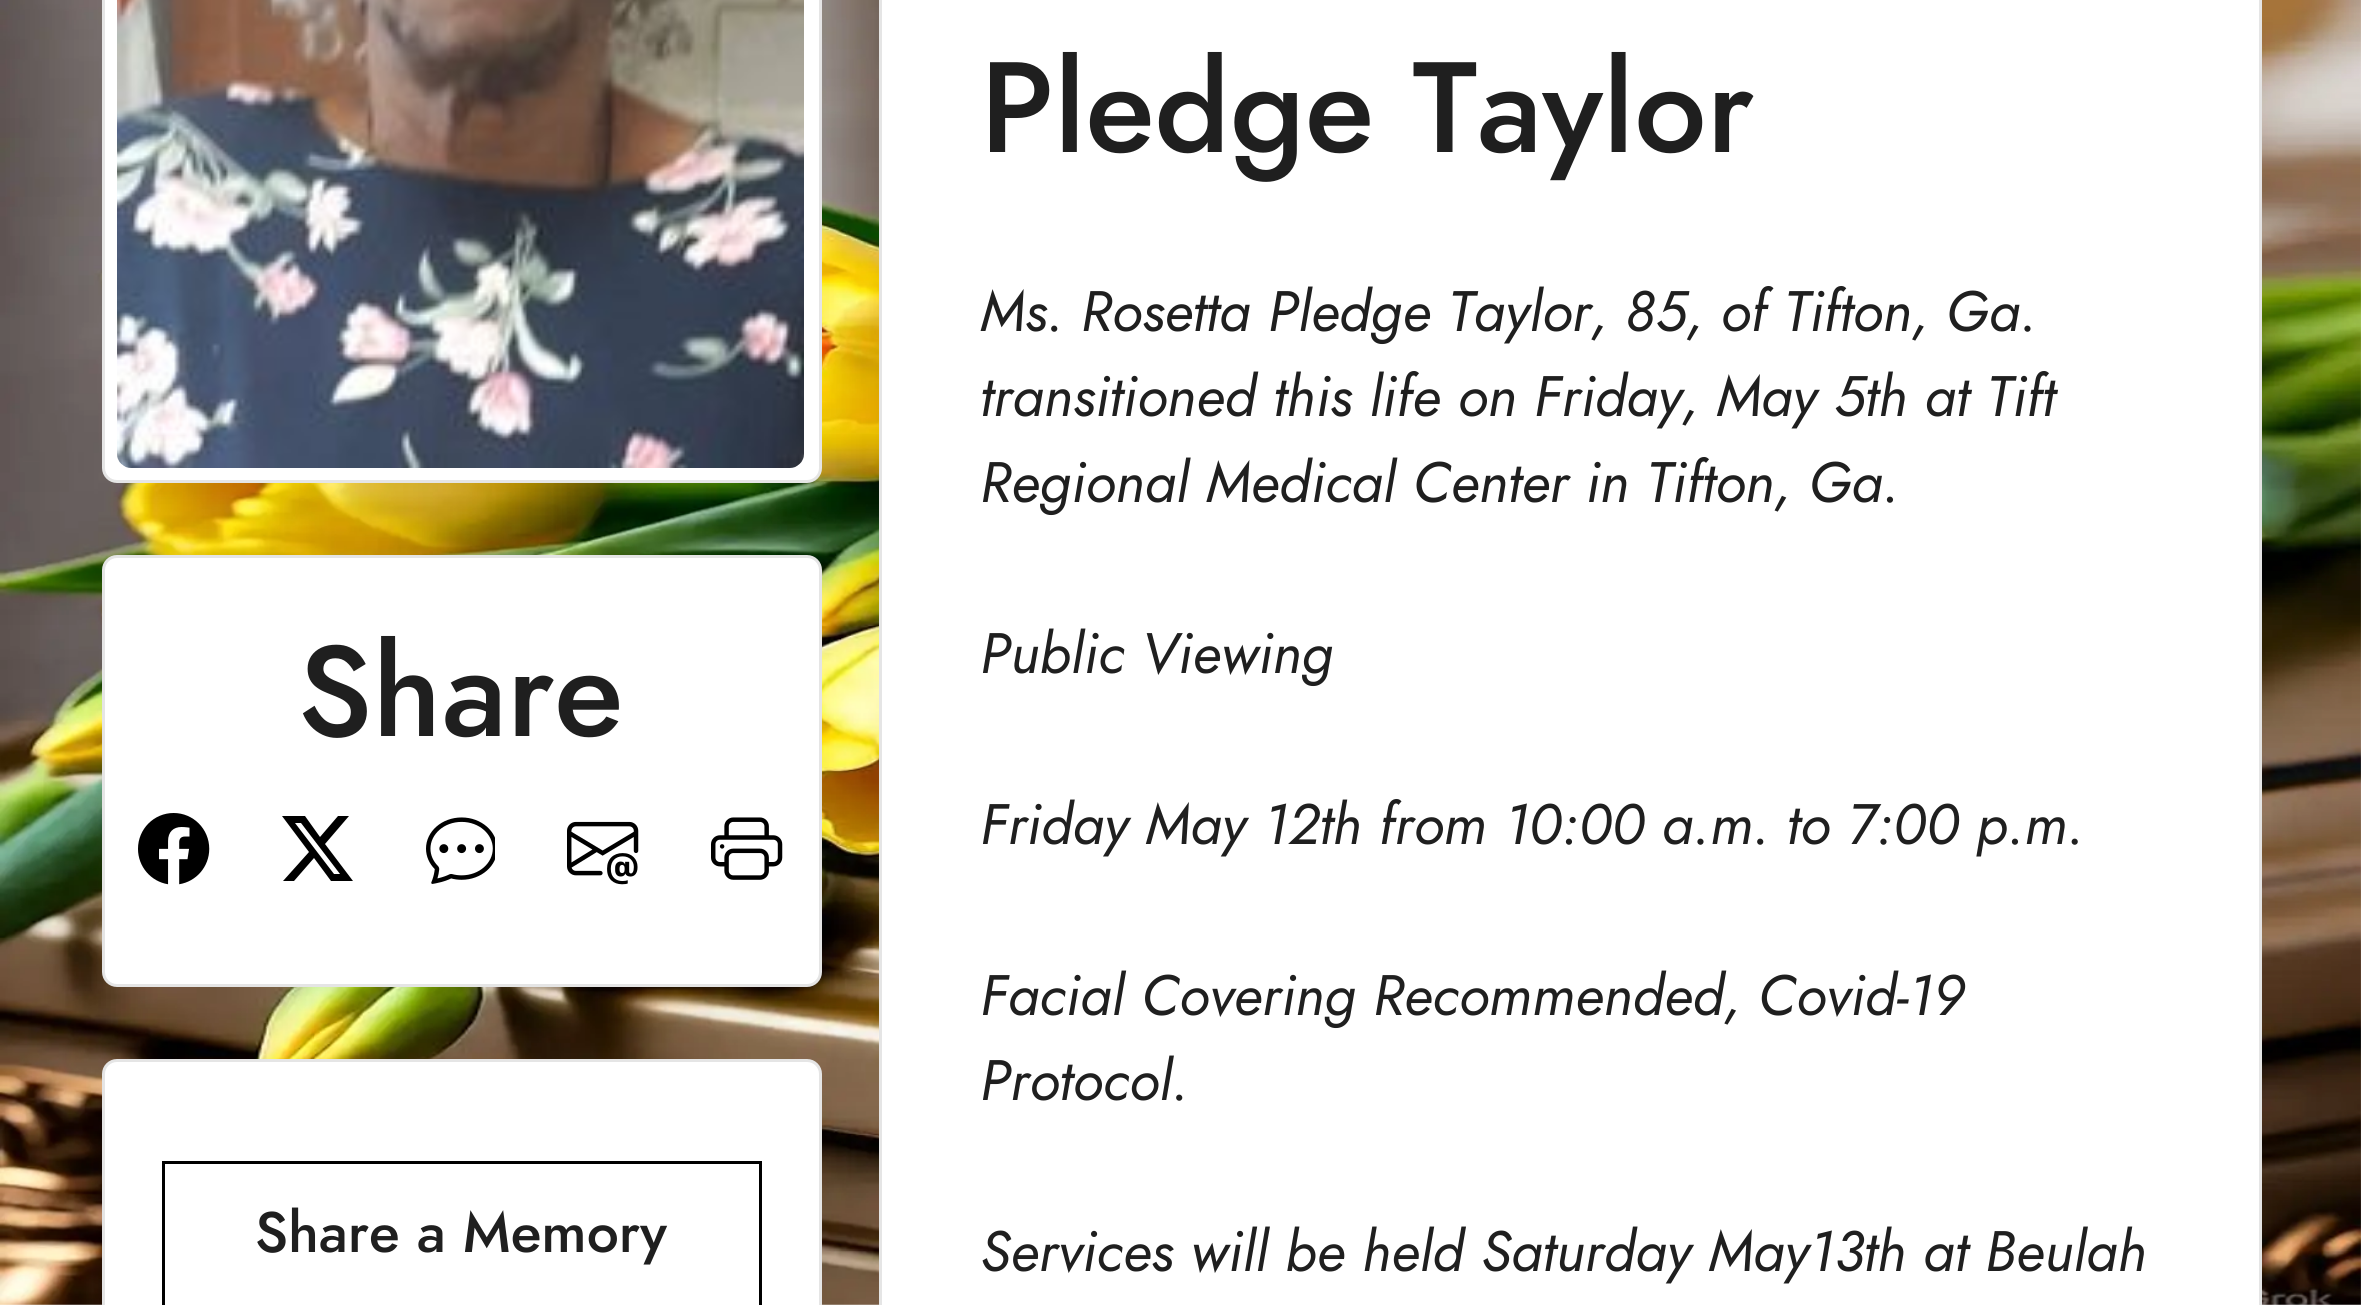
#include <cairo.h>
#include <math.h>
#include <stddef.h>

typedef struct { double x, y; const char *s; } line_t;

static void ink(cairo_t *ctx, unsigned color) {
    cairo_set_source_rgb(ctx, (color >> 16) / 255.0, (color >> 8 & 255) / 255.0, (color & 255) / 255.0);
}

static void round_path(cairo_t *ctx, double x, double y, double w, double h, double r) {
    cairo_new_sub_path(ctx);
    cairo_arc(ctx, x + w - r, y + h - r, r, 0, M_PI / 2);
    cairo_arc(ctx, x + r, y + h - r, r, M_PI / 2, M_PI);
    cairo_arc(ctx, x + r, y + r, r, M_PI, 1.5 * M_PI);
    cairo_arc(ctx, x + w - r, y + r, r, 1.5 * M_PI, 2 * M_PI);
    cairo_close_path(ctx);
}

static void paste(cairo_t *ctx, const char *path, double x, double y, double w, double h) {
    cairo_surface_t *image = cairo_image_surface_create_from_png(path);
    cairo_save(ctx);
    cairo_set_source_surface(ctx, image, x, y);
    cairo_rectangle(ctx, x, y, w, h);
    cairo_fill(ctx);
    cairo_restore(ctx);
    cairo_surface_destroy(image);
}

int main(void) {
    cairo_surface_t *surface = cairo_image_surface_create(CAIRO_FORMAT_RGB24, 2361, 1305);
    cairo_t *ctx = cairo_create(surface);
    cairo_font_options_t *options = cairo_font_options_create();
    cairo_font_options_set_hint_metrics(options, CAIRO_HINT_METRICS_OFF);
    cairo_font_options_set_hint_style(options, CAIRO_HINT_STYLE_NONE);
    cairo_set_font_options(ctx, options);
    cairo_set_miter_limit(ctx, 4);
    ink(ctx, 0xFFFFFF);
    cairo_paint(ctx);
    paste(ctx, "media/1.png", 0, 0, 2361, 1305);
    ink(ctx, 0xFFFFFF);
    round_path(ctx, 103.5, -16.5, 717, 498, 13.5);
    cairo_fill_preserve(ctx);
    ink(ctx, 0xE5E5E5);
    cairo_set_line_width(ctx, 3);
    cairo_stroke(ctx);
    paste(ctx, "media/2.png", 117, 0, 687, 468);
    ink(ctx, 0xFFFFFF);
    round_path(ctx, 103.5, 556.5, 717, 429, 13.5);
    cairo_fill_preserve(ctx);
    ink(ctx, 0xE5E5E5);
    cairo_stroke(ctx);
    cairo_select_font_face(ctx, "Jost Medium", CAIRO_FONT_SLANT_NORMAL, CAIRO_FONT_WEIGHT_NORMAL);
    cairo_set_font_size(ctx, 128.25);
    ink(ctx, 0x1F1F1F);
    cairo_move_to(ctx, 298, 736);
    cairo_show_text(ctx, "Share");
    paste(ctx, "media/3.png", 138, 813, 72, 72);
    ink(ctx, 0x000000);
    cairo_new_path(ctx);
    cairo_move_to(ctx, 338, 816);
    cairo_line_to(ctx, 349, 816);
    cairo_line_to(ctx, 325, 844);
    cairo_line_to(ctx, 353, 881);
    cairo_line_to(ctx, 331, 881);
    cairo_line_to(ctx, 314, 858);
    cairo_line_to(ctx, 294, 881);
    cairo_line_to(ctx, 283, 881);
    cairo_line_to(ctx, 309, 852);
    cairo_line_to(ctx, 282, 816);
    cairo_line_to(ctx, 305, 816);
    cairo_line_to(ctx, 320, 837);
    cairo_close_path(ctx);
    cairo_move_to(ctx, 334, 874);
    cairo_line_to(ctx, 340, 874);
    cairo_line_to(ctx, 301, 823);
    cairo_line_to(ctx, 295, 823);
    cairo_close_path(ctx);
    cairo_fill(ctx);
    paste(ctx, "media/4.png", 426, 817, 69, 67);
    paste(ctx, "media/5.png", 567, 821, 72, 64);
    paste(ctx, "media/6.png", 711, 817, 72, 63);
    ink(ctx, 0xFFFFFF);
    round_path(ctx, 103.5, 1060.5, 717, 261, 13.5);
    cairo_fill_preserve(ctx);
    ink(ctx, 0xE5E5E5);
    cairo_stroke(ctx);
    cairo_rectangle(ctx, 163.5, 1162.5, 597, 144);
    ink(ctx, 0x000000);
    cairo_stroke(ctx);
    cairo_set_font_size(ctx, 57);
    ink(ctx, 0x1F1F1F);
    cairo_move_to(ctx, 255, 1252);
    cairo_show_text(ctx, "Share a Memory");
    ink(ctx, 0xFFFFFF);
    cairo_rectangle(ctx, 880.5, -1.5, 1380, 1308);
    cairo_fill_preserve(ctx);
    ink(ctx, 0xE5E5E5);
    cairo_stroke(ctx);
    cairo_set_font_size(ctx, 128.25);
    ink(ctx, 0x1F1F1F);
    cairo_move_to(ctx, 980, 152);
    cairo_show_text(ctx, "Pledge Taylor");
    cairo_select_font_face(ctx, "Jost", CAIRO_FONT_SLANT_ITALIC, CAIRO_FONT_WEIGHT_NORMAL);
    cairo_set_font_size(ctx, 57);
    {
        static const line_t items[] = {
            {980, 331, "Ms. Rosetta Pledge Taylor, 85, of Tifton, Ga."},
            {980, 416, "transitioned this life on Friday, May 5th at Tift"},
            {980, 502, "Regional Medical Center in Tifton, Ga."},
            {980, 673, "Public Viewing"},
            {980, 844, "Friday May 12th from 10:00 a.m. to 7:00 p.m."},
            {980, 1015, "Facial Covering Recommended, Covid-19"},
            {980, 1100, "Protocol."},
            {980, 1271, "Services will be held Saturday May13th at Beulah"},
        };
        for (size_t i = 0; i < sizeof items / sizeof *items; i++) {
            cairo_move_to(ctx, items[i].x, items[i].y);
            cairo_show_text(ctx, items[i].s);
        }
    }
    cairo_surface_write_to_png(surface, "image.png");
    cairo_font_options_destroy(options);
    cairo_destroy(ctx);
    cairo_surface_destroy(surface);
    return 0;
}
